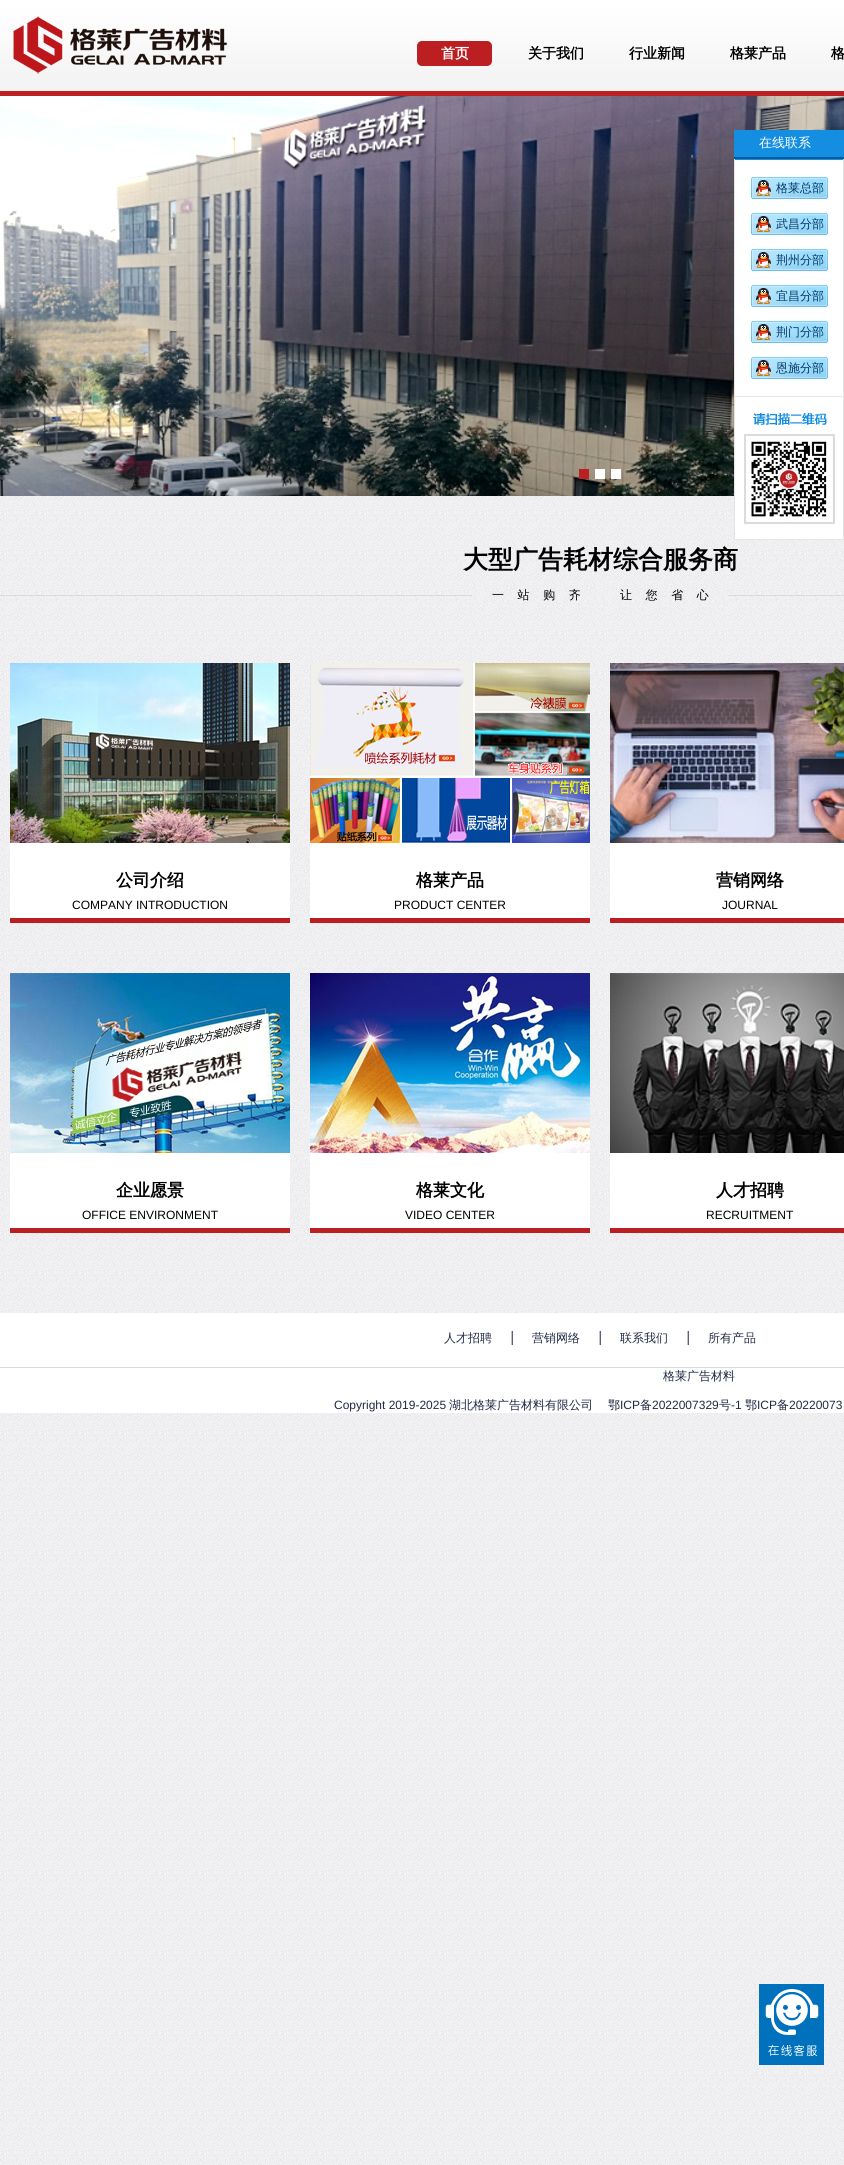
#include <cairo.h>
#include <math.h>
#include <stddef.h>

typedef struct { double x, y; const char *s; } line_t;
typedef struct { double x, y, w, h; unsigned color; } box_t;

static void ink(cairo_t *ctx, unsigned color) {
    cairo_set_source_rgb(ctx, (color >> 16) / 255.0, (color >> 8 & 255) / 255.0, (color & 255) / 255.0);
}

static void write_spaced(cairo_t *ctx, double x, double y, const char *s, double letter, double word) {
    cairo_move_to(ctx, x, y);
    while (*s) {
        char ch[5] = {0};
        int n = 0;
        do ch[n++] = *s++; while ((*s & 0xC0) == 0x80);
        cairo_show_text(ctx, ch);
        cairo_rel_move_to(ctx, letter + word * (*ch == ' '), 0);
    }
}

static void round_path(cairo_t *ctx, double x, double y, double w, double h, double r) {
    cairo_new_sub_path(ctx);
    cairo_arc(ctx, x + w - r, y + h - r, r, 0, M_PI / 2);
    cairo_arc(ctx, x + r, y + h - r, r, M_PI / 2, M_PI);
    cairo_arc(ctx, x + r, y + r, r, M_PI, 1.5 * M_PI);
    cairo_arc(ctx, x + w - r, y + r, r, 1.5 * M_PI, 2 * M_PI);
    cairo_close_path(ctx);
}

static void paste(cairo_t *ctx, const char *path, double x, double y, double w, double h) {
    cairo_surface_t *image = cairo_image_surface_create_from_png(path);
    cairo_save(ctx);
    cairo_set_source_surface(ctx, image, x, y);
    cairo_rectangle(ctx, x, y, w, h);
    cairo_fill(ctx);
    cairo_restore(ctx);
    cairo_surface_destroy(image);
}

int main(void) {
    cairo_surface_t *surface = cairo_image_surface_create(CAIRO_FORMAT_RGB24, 844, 2165);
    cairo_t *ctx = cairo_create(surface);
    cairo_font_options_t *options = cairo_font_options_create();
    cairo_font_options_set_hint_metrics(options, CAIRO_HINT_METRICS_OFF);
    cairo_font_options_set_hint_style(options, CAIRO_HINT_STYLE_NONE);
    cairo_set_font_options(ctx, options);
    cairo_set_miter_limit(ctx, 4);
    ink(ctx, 0xFFFFFF);
    cairo_paint(ctx);
    paste(ctx, "media/1.png", 0, 496, 844, 1669);
    paste(ctx, "media/2.png", 0, 0, 844, 91);
    ink(ctx, 0xBB1F22);
    cairo_rectangle(ctx, 0, 91, 844, 5);
    cairo_fill(ctx);
    paste(ctx, "media/3.png", 13, 16, 214, 58);
    round_path(ctx, 417, 41, 75, 25, 5);
    cairo_fill(ctx);
    cairo_select_font_face(ctx, "WenQuanYi Zen Hei", CAIRO_FONT_SLANT_NORMAL, CAIRO_FONT_WEIGHT_BOLD);
    cairo_set_font_size(ctx, 14);
    ink(ctx, 0xFFFFFF);
    cairo_move_to(ctx, 441, 58);
    cairo_show_text(ctx, "首页");
    ink(ctx, 0x000000);
    {
        static const line_t items[] = {
            {528, 58, "关于我们"},
            {629, 58, "行业新闻"},
            {730, 58, "格莱产品"},
            {831, 58, "格"},
        };
        for (size_t i = 0; i < sizeof items / sizeof *items; i++) {
            cairo_move_to(ctx, items[i].x, items[i].y);
            cairo_show_text(ctx, items[i].s);
        }
    }
    paste(ctx, "media/4.png", 0, 96, 844, 400);
    {
        static const box_t items[] = {
            {579, 469, 10, 10, 0xBB1F22},
            {595, 469, 10, 10, 0xFFFFFF},
            {611, 469, 10, 10, 0xFFFFFF},
            {735, 160, 108, 379, 0xFFFFFF},
            {734, 130, 110, 27, 0x148EE1},
            {734, 157, 110, 2, 0x005D9A},
        };
        for (size_t i = 0; i < sizeof items / sizeof *items; i++) {
            ink(ctx, items[i].color);
            cairo_rectangle(ctx, items[i].x, items[i].y, items[i].w, items[i].h);
            cairo_fill(ctx);
        }
    }
    cairo_select_font_face(ctx, "WenQuanYi Zen Hei Medium", CAIRO_FONT_SLANT_NORMAL, CAIRO_FONT_WEIGHT_NORMAL);
    cairo_set_font_size(ctx, 13);
    ink(ctx, 0xFFFFFF);
    cairo_move_to(ctx, 759, 147);
    cairo_show_text(ctx, "在线联系");
    {
        static const box_t items[] = {
            {734, 159, 110, 1, 0x148EE1},
            {843, 159, 1, 237, 0xE5E5E6},
            {734, 159, 1, 237, 0xE5E5E6},
        };
        for (size_t i = 0; i < sizeof items / sizeof *items; i++) {
            ink(ctx, items[i].color);
            cairo_rectangle(ctx, items[i].x, items[i].y, items[i].w, items[i].h);
            cairo_fill(ctx);
        }
    }
    paste(ctx, "media/5.png", 751, 177, 77, 22);
    cairo_set_font_size(ctx, 12);
    ink(ctx, 0x00386D);
    cairo_move_to(ctx, 776, 192);
    cairo_show_text(ctx, "格莱总部");
    paste(ctx, "media/5.png", 751, 213, 77, 22);
    cairo_move_to(ctx, 776, 228);
    cairo_show_text(ctx, "武昌分部");
    paste(ctx, "media/5.png", 751, 249, 77, 22);
    cairo_move_to(ctx, 776, 264);
    cairo_show_text(ctx, "荆州分部");
    paste(ctx, "media/5.png", 751, 285, 77, 22);
    cairo_move_to(ctx, 776, 300);
    cairo_show_text(ctx, "宜昌分部");
    paste(ctx, "media/5.png", 751, 321, 77, 22);
    cairo_move_to(ctx, 776, 336);
    cairo_show_text(ctx, "荆门分部");
    paste(ctx, "media/5.png", 751, 357, 77, 22);
    cairo_move_to(ctx, 776, 372);
    cairo_show_text(ctx, "恩施分部");
    cairo_rectangle(ctx, 734.5, 396.5, 109, 143);
    ink(ctx, 0xE5E5E6);
    cairo_set_line_width(ctx, 1);
    cairo_stroke(ctx);
    paste(ctx, "media/6.png", 744, 412, 91, 112);
    cairo_select_font_face(ctx, "WenQuanYi Zen Hei", CAIRO_FONT_SLANT_NORMAL, CAIRO_FONT_WEIGHT_BOLD);
    cairo_set_font_size(ctx, 25);
    ink(ctx, 0x000000);
    cairo_move_to(ctx, 463, 568);
    cairo_show_text(ctx, "大型广告耗材综合服务商");
    ink(ctx, 0xDCDCDC);
    cairo_rectangle(ctx, 0, 595, 844, 1);
    cairo_fill(ctx);
    paste(ctx, "media/7.png", 472, 588, 128, 14);
    cairo_select_font_face(ctx, "WenQuanYi Zen Hei Medium", CAIRO_FONT_SLANT_NORMAL, CAIRO_FONT_WEIGHT_NORMAL);
    cairo_set_font_size(ctx, 12);
    ink(ctx, 0x000000);
    write_spaced(ctx, 492, 599, "一 站 购 齐", 0, 10);
    paste(ctx, "media/7.png", 600, 588, 128, 14);
    write_spaced(ctx, 620, 599, "让 您 省 心", 0, 10);
    ink(ctx, 0xBB1F22);
    cairo_rectangle(ctx, 10, 918, 280, 5);
    cairo_fill(ctx);
    ink(ctx, 0xFFFFFF);
    cairo_rectangle(ctx, 10, 843, 280, 75);
    cairo_fill(ctx);
    paste(ctx, "media/8.png", 10, 663, 280, 180);
    cairo_select_font_face(ctx, "WenQuanYi Zen Hei", CAIRO_FONT_SLANT_NORMAL, CAIRO_FONT_WEIGHT_BOLD);
    cairo_set_font_size(ctx, 17);
    ink(ctx, 0x000000);
    cairo_move_to(ctx, 116, 886);
    cairo_show_text(ctx, "公司介绍");
    cairo_select_font_face(ctx, "Liberation Sans", CAIRO_FONT_SLANT_NORMAL, CAIRO_FONT_WEIGHT_NORMAL);
    cairo_set_font_size(ctx, 12);
    cairo_move_to(ctx, 72, 909);
    cairo_show_text(ctx, "COMPANY INTRODUCTION");
    ink(ctx, 0xBB1F22);
    cairo_rectangle(ctx, 310, 918, 280, 5);
    cairo_fill(ctx);
    ink(ctx, 0xFFFFFF);
    cairo_rectangle(ctx, 310, 843, 280, 75);
    cairo_fill(ctx);
    paste(ctx, "media/9.png", 310, 663, 280, 180);
    cairo_select_font_face(ctx, "WenQuanYi Zen Hei", CAIRO_FONT_SLANT_NORMAL, CAIRO_FONT_WEIGHT_BOLD);
    cairo_set_font_size(ctx, 17);
    ink(ctx, 0x000000);
    cairo_move_to(ctx, 416, 886);
    cairo_show_text(ctx, "格莱产品");
    cairo_select_font_face(ctx, "Liberation Sans", CAIRO_FONT_SLANT_NORMAL, CAIRO_FONT_WEIGHT_NORMAL);
    cairo_set_font_size(ctx, 12);
    cairo_move_to(ctx, 394, 909);
    cairo_show_text(ctx, "PRODUCT CENTER");
    ink(ctx, 0xBB1F22);
    cairo_rectangle(ctx, 610, 918, 234, 5);
    cairo_fill(ctx);
    ink(ctx, 0xFFFFFF);
    cairo_rectangle(ctx, 610, 843, 234, 75);
    cairo_fill(ctx);
    paste(ctx, "media/10.png", 610, 663, 234, 180);
    cairo_select_font_face(ctx, "WenQuanYi Zen Hei", CAIRO_FONT_SLANT_NORMAL, CAIRO_FONT_WEIGHT_BOLD);
    cairo_set_font_size(ctx, 17);
    ink(ctx, 0x000000);
    cairo_move_to(ctx, 716, 886);
    cairo_show_text(ctx, "营销网络");
    cairo_select_font_face(ctx, "Liberation Sans", CAIRO_FONT_SLANT_NORMAL, CAIRO_FONT_WEIGHT_NORMAL);
    cairo_set_font_size(ctx, 12);
    cairo_move_to(ctx, 722, 909);
    cairo_show_text(ctx, "JOURNAL");
    ink(ctx, 0xBB1F22);
    cairo_rectangle(ctx, 10, 1228, 280, 5);
    cairo_fill(ctx);
    ink(ctx, 0xFFFFFF);
    cairo_rectangle(ctx, 10, 1153, 280, 75);
    cairo_fill(ctx);
    paste(ctx, "media/11.png", 10, 973, 280, 180);
    cairo_select_font_face(ctx, "WenQuanYi Zen Hei", CAIRO_FONT_SLANT_NORMAL, CAIRO_FONT_WEIGHT_BOLD);
    cairo_set_font_size(ctx, 17);
    ink(ctx, 0x000000);
    cairo_move_to(ctx, 116, 1196);
    cairo_show_text(ctx, "企业愿景");
    cairo_select_font_face(ctx, "Liberation Sans", CAIRO_FONT_SLANT_NORMAL, CAIRO_FONT_WEIGHT_NORMAL);
    cairo_set_font_size(ctx, 12);
    cairo_move_to(ctx, 82, 1219);
    cairo_show_text(ctx, "OFFICE ENVIRONMENT");
    ink(ctx, 0xBB1F22);
    cairo_rectangle(ctx, 310, 1228, 280, 5);
    cairo_fill(ctx);
    ink(ctx, 0xFFFFFF);
    cairo_rectangle(ctx, 310, 1153, 280, 75);
    cairo_fill(ctx);
    paste(ctx, "media/12.png", 310, 973, 280, 180);
    cairo_select_font_face(ctx, "WenQuanYi Zen Hei", CAIRO_FONT_SLANT_NORMAL, CAIRO_FONT_WEIGHT_BOLD);
    cairo_set_font_size(ctx, 17);
    ink(ctx, 0x000000);
    cairo_move_to(ctx, 416, 1196);
    cairo_show_text(ctx, "格莱文化");
    cairo_select_font_face(ctx, "Liberation Sans", CAIRO_FONT_SLANT_NORMAL, CAIRO_FONT_WEIGHT_NORMAL);
    cairo_set_font_size(ctx, 12);
    cairo_move_to(ctx, 405, 1219);
    cairo_show_text(ctx, "VIDEO CENTER");
    ink(ctx, 0xBB1F22);
    cairo_rectangle(ctx, 610, 1228, 234, 5);
    cairo_fill(ctx);
    ink(ctx, 0xFFFFFF);
    cairo_rectangle(ctx, 610, 1153, 234, 75);
    cairo_fill(ctx);
    paste(ctx, "media/13.png", 610, 973, 234, 180);
    cairo_select_font_face(ctx, "WenQuanYi Zen Hei", CAIRO_FONT_SLANT_NORMAL, CAIRO_FONT_WEIGHT_BOLD);
    cairo_set_font_size(ctx, 17);
    ink(ctx, 0x000000);
    cairo_move_to(ctx, 716, 1196);
    cairo_show_text(ctx, "人才招聘");
    cairo_select_font_face(ctx, "Liberation Sans", CAIRO_FONT_SLANT_NORMAL, CAIRO_FONT_WEIGHT_NORMAL);
    cairo_set_font_size(ctx, 12);
    cairo_move_to(ctx, 706, 1219);
    cairo_show_text(ctx, "RECRUITMENT");
    ink(ctx, 0xFFFFFF);
    cairo_rectangle(ctx, 0, 1313, 844, 100);
    cairo_fill(ctx);
    ink(ctx, 0xDBDBDD);
    cairo_rectangle(ctx, 0, 1367, 844, 1);
    cairo_fill(ctx);
    cairo_select_font_face(ctx, "WenQuanYi Zen Hei Medium", CAIRO_FONT_SLANT_NORMAL, CAIRO_FONT_WEIGHT_NORMAL);
    ink(ctx, 0x212A45);
    cairo_move_to(ctx, 444, 1342);
    cairo_show_text(ctx, "人才招聘");
    ink(ctx, 0xC4C6CD);
    cairo_rectangle(ctx, 511, 1331, 1, 14);
    cairo_fill(ctx);
    ink(ctx, 0x212A45);
    cairo_move_to(ctx, 532, 1342);
    cairo_show_text(ctx, "营销网络");
    ink(ctx, 0xC4C6CD);
    cairo_rectangle(ctx, 599, 1331, 1, 14);
    cairo_fill(ctx);
    ink(ctx, 0x5C6377);
    cairo_rectangle(ctx, 512, 1331, 1, 14);
    cairo_fill(ctx);
    ink(ctx, 0x212A45);
    cairo_move_to(ctx, 620, 1342);
    cairo_show_text(ctx, "联系我们");
    ink(ctx, 0xC4C6CD);
    cairo_rectangle(ctx, 687, 1331, 1, 14);
    cairo_fill(ctx);
    ink(ctx, 0x5C6377);
    cairo_rectangle(ctx, 600, 1331, 1, 14);
    cairo_fill(ctx);
    ink(ctx, 0x212A45);
    cairo_move_to(ctx, 708, 1342);
    cairo_show_text(ctx, "所有产品");
    ink(ctx, 0x5C6377);
    cairo_rectangle(ctx, 688, 1331, 1, 14);
    cairo_fill(ctx);
    ink(ctx, 0x212A45);
    cairo_move_to(ctx, 663, 1380);
    cairo_show_text(ctx, "格莱广告材料");
    cairo_select_font_face(ctx, "Liberation Sans", CAIRO_FONT_SLANT_NORMAL, CAIRO_FONT_WEIGHT_NORMAL);
    cairo_move_to(ctx, 334, 1409);
    cairo_show_text(ctx, "Copyright 2019-2025");
    cairo_select_font_face(ctx, "WenQuanYi Zen Hei Medium", CAIRO_FONT_SLANT_NORMAL, CAIRO_FONT_WEIGHT_NORMAL);
    cairo_move_to(ctx, 449, 1409);
    cairo_show_text(ctx, "湖北格莱广告材料有限公司");
    cairo_move_to(ctx, 608, 1409);
    cairo_show_text(ctx, "鄂");
    cairo_select_font_face(ctx, "Liberation Sans", CAIRO_FONT_SLANT_NORMAL, CAIRO_FONT_WEIGHT_NORMAL);
    cairo_move_to(ctx, 620, 1409);
    cairo_show_text(ctx, "ICP");
    cairo_select_font_face(ctx, "WenQuanYi Zen Hei Medium", CAIRO_FONT_SLANT_NORMAL, CAIRO_FONT_WEIGHT_NORMAL);
    cairo_move_to(ctx, 640, 1409);
    cairo_show_text(ctx, "备");
    cairo_select_font_face(ctx, "Liberation Sans", CAIRO_FONT_SLANT_NORMAL, CAIRO_FONT_WEIGHT_NORMAL);
    cairo_move_to(ctx, 652, 1409);
    cairo_show_text(ctx, "2022007329");
    cairo_select_font_face(ctx, "WenQuanYi Zen Hei Medium", CAIRO_FONT_SLANT_NORMAL, CAIRO_FONT_WEIGHT_NORMAL);
    cairo_move_to(ctx, 719, 1409);
    cairo_show_text(ctx, "号");
    cairo_select_font_face(ctx, "Liberation Sans", CAIRO_FONT_SLANT_NORMAL, CAIRO_FONT_WEIGHT_NORMAL);
    cairo_move_to(ctx, 731, 1409);
    cairo_show_text(ctx, "-1");
    cairo_select_font_face(ctx, "WenQuanYi Zen Hei Medium", CAIRO_FONT_SLANT_NORMAL, CAIRO_FONT_WEIGHT_NORMAL);
    cairo_move_to(ctx, 745, 1409);
    cairo_show_text(ctx, "鄂");
    cairo_select_font_face(ctx, "Liberation Sans", CAIRO_FONT_SLANT_NORMAL, CAIRO_FONT_WEIGHT_NORMAL);
    cairo_move_to(ctx, 757, 1409);
    cairo_show_text(ctx, "ICP");
    cairo_select_font_face(ctx, "WenQuanYi Zen Hei Medium", CAIRO_FONT_SLANT_NORMAL, CAIRO_FONT_WEIGHT_NORMAL);
    cairo_move_to(ctx, 777, 1409);
    cairo_show_text(ctx, "备");
    cairo_select_font_face(ctx, "Liberation Sans", CAIRO_FONT_SLANT_NORMAL, CAIRO_FONT_WEIGHT_NORMAL);
    cairo_move_to(ctx, 789, 1409);
    cairo_show_text(ctx, "20220073");
    paste(ctx, "media/14.png", 759, 1984, 65, 81);
    cairo_surface_write_to_png(surface, "image.png");
    cairo_font_options_destroy(options);
    cairo_destroy(ctx);
    cairo_surface_destroy(surface);
    return 0;
}
